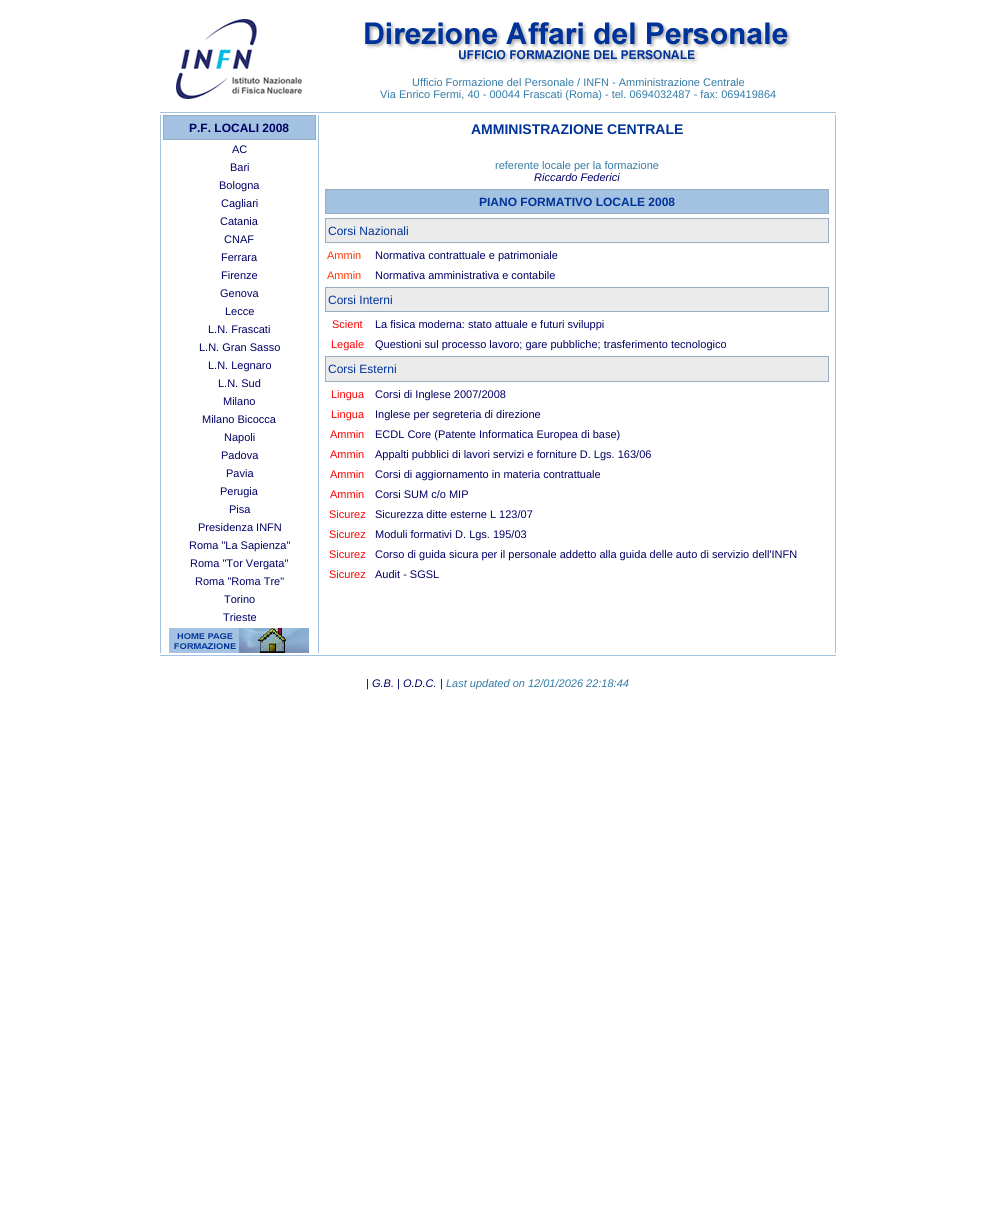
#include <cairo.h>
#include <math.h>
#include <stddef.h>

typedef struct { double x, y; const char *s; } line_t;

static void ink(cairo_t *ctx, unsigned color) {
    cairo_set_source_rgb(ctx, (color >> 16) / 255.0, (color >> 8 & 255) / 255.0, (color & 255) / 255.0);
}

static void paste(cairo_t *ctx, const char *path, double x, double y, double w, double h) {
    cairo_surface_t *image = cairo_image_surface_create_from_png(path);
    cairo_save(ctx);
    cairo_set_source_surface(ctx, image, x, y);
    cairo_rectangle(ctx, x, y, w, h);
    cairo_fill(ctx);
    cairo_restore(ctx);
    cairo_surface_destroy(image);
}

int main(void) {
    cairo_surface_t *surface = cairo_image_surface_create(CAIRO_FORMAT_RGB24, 995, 1230);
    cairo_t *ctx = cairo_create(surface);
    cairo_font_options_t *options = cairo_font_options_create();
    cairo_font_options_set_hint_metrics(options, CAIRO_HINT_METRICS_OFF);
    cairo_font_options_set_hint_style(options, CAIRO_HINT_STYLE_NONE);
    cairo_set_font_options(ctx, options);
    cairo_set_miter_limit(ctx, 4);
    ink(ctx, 0xFFFFFF);
    cairo_paint(ctx);
    paste(ctx, "media/1.png", 176, 19, 126, 80);
    paste(ctx, "media/2.png", 364, 22, 428, 27);
    paste(ctx, "media/3.png", 458, 50, 241, 14);
    cairo_select_font_face(ctx, "Liberation Sans", CAIRO_FONT_SLANT_NORMAL, CAIRO_FONT_WEIGHT_NORMAL);
    cairo_set_font_size(ctx, 11);
    ink(ctx, 0x327BA7);
    cairo_move_to(ctx, 412, 86);
    cairo_show_text(ctx, "Ufficio Formazione del Personale / INFN - Amministrazione Centrale");
    cairo_move_to(ctx, 380, 98);
    cairo_show_text(ctx, "Via Enrico Fermi, 40 - 00044 Frascati (Roma) - tel. 0694032487 - fax: 069419864");
    ink(ctx, 0xA3C1E0);
    cairo_rectangle(ctx, 160, 112, 676, 1);
    cairo_fill(ctx);
    cairo_rectangle(ctx, 160, 115, 1, 538);
    cairo_fill(ctx);
    cairo_rectangle(ctx, 163.5, 115.5, 152, 24);
    cairo_fill_preserve(ctx);
    ink(ctx, 0x96ADC3);
    cairo_set_line_width(ctx, 1);
    cairo_stroke(ctx);
    cairo_select_font_face(ctx, "Liberation Sans", CAIRO_FONT_SLANT_NORMAL, CAIRO_FONT_WEIGHT_BOLD);
    cairo_set_font_size(ctx, 12);
    ink(ctx, 0x000066);
    cairo_move_to(ctx, 189, 132);
    cairo_show_text(ctx, "P.F. LOCALI 2008");
    cairo_select_font_face(ctx, "Liberation Sans", CAIRO_FONT_SLANT_NORMAL, CAIRO_FONT_WEIGHT_NORMAL);
    cairo_set_font_size(ctx, 11);
    {
        static const line_t items[] = {
            {232, 153, "AC"},
            {230, 171, "Bari"},
            {219, 189, "Bologna"},
            {221, 207, "Cagliari"},
            {220, 225, "Catania"},
            {224, 243, "CNAF"},
            {221, 261, "Ferrara"},
            {221, 279, "Firenze"},
            {220, 297, "Genova"},
            {225, 315, "Lecce"},
            {208, 333, "L.N. Frascati"},
            {199, 351, "L.N. Gran Sasso"},
            {208, 369, "L.N. Legnaro"},
            {218, 387, "L.N. Sud"},
            {223, 405, "Milano"},
            {202, 423, "Milano Bicocca"},
            {224, 441, "Napoli"},
            {221, 459, "Padova"},
            {226, 477, "Pavia"},
            {220, 495, "Perugia"},
            {229, 513, "Pisa"},
            {198, 531, "Presidenza INFN"},
            {189, 549, "Roma \"La Sapienza\""},
            {190, 567, "Roma \"Tor Vergata\""},
            {195, 585, "Roma \"Roma Tre\""},
            {224, 603, "Torino"},
            {223, 621, "Trieste"},
        };
        for (size_t i = 0; i < sizeof items / sizeof *items; i++) {
            cairo_move_to(ctx, items[i].x, items[i].y);
            cairo_show_text(ctx, items[i].s);
        }
    }
    ink(ctx, 0xA3C1E0);
    cairo_rectangle(ctx, 318, 115, 1, 538);
    cairo_fill(ctx);
    cairo_select_font_face(ctx, "Liberation Sans", CAIRO_FONT_SLANT_NORMAL, CAIRO_FONT_WEIGHT_BOLD);
    cairo_set_font_size(ctx, 14);
    ink(ctx, 0x003399);
    cairo_move_to(ctx, 471, 134);
    cairo_show_text(ctx, "AMMINISTRAZIONE CENTRALE");
    cairo_select_font_face(ctx, "Liberation Sans", CAIRO_FONT_SLANT_NORMAL, CAIRO_FONT_WEIGHT_NORMAL);
    cairo_set_font_size(ctx, 11);
    ink(ctx, 0x327BA7);
    cairo_move_to(ctx, 495, 169);
    cairo_show_text(ctx, "referente locale per la formazione");
    cairo_select_font_face(ctx, "Liberation Sans", CAIRO_FONT_SLANT_ITALIC, CAIRO_FONT_WEIGHT_NORMAL);
    ink(ctx, 0x000066);
    cairo_move_to(ctx, 534, 181);
    cairo_show_text(ctx, "Riccardo Federici");
    ink(ctx, 0xA3C1E0);
    cairo_rectangle(ctx, 325.5, 189.5, 503, 24);
    cairo_fill_preserve(ctx);
    ink(ctx, 0x96ADC3);
    cairo_stroke(ctx);
    cairo_select_font_face(ctx, "Liberation Sans", CAIRO_FONT_SLANT_NORMAL, CAIRO_FONT_WEIGHT_BOLD);
    cairo_set_font_size(ctx, 12);
    ink(ctx, 0x003399);
    cairo_move_to(ctx, 479, 206);
    cairo_show_text(ctx, "PIANO FORMATIVO LOCALE 2008");
    ink(ctx, 0xEBEBEB);
    cairo_rectangle(ctx, 325.5, 218.5, 503, 24);
    cairo_fill_preserve(ctx);
    ink(ctx, 0x96ADC3);
    cairo_stroke(ctx);
    cairo_select_font_face(ctx, "Liberation Sans", CAIRO_FONT_SLANT_NORMAL, CAIRO_FONT_WEIGHT_NORMAL);
    ink(ctx, 0x003399);
    cairo_move_to(ctx, 328, 235);
    cairo_show_text(ctx, "Corsi Nazionali");
    cairo_set_font_size(ctx, 11);
    ink(ctx, 0xFF3300);
    cairo_move_to(ctx, 327, 259);
    cairo_show_text(ctx, "Ammin");
    ink(ctx, 0x000066);
    cairo_move_to(ctx, 375, 259);
    cairo_show_text(ctx, "Normativa contrattuale e patrimoniale");
    ink(ctx, 0xFF3300);
    cairo_move_to(ctx, 327, 279);
    cairo_show_text(ctx, "Ammin");
    ink(ctx, 0x000066);
    cairo_move_to(ctx, 375, 279);
    cairo_show_text(ctx, "Normativa amministrativa e contabile");
    ink(ctx, 0xEBEBEB);
    cairo_rectangle(ctx, 325.5, 287.5, 503, 24);
    cairo_fill_preserve(ctx);
    ink(ctx, 0x96ADC3);
    cairo_stroke(ctx);
    cairo_set_font_size(ctx, 12);
    ink(ctx, 0x003399);
    cairo_move_to(ctx, 328, 304);
    cairo_show_text(ctx, "Corsi Interni");
    cairo_set_font_size(ctx, 11);
    ink(ctx, 0xFF0000);
    cairo_move_to(ctx, 332, 328);
    cairo_show_text(ctx, "Scient");
    ink(ctx, 0x000066);
    cairo_move_to(ctx, 375, 328);
    cairo_show_text(ctx, "La fisica moderna: stato attuale e futuri sviluppi");
    ink(ctx, 0xFF0000);
    cairo_move_to(ctx, 331, 348);
    cairo_show_text(ctx, "Legale");
    ink(ctx, 0x000066);
    cairo_move_to(ctx, 375, 348);
    cairo_show_text(ctx, "Questioni sul processo lavoro; gare pubbliche; trasferimento tecnologico");
    ink(ctx, 0xEBEBEB);
    cairo_rectangle(ctx, 325.5, 356.5, 503, 25);
    cairo_fill_preserve(ctx);
    ink(ctx, 0x96ADC3);
    cairo_stroke(ctx);
    cairo_set_font_size(ctx, 12);
    ink(ctx, 0x003399);
    cairo_move_to(ctx, 328, 373);
    cairo_show_text(ctx, "Corsi Esterni");
    cairo_set_font_size(ctx, 11);
    ink(ctx, 0xFF0000);
    cairo_move_to(ctx, 331, 398);
    cairo_show_text(ctx, "Lingua");
    ink(ctx, 0x000066);
    cairo_move_to(ctx, 375, 398);
    cairo_show_text(ctx, "Corsi di Inglese 2007/2008");
    ink(ctx, 0xFF0000);
    cairo_move_to(ctx, 331, 418);
    cairo_show_text(ctx, "Lingua");
    ink(ctx, 0x000066);
    cairo_move_to(ctx, 375, 418);
    cairo_show_text(ctx, "Inglese per segreteria di direzione");
    ink(ctx, 0xFF0000);
    cairo_move_to(ctx, 330, 438);
    cairo_show_text(ctx, "Ammin");
    ink(ctx, 0x000066);
    cairo_move_to(ctx, 375, 438);
    cairo_show_text(ctx, "ECDL Core (Patente Informatica Europea di base)");
    ink(ctx, 0xFF0000);
    cairo_move_to(ctx, 330, 458);
    cairo_show_text(ctx, "Ammin");
    ink(ctx, 0x000066);
    cairo_move_to(ctx, 375, 458);
    cairo_show_text(ctx, "Appalti pubblici di lavori servizi e forniture D. Lgs. 163/06");
    ink(ctx, 0xFF0000);
    cairo_move_to(ctx, 330, 478);
    cairo_show_text(ctx, "Ammin");
    ink(ctx, 0x000066);
    cairo_move_to(ctx, 375, 478);
    cairo_show_text(ctx, "Corsi di aggiornamento in materia contrattuale");
    ink(ctx, 0xFF0000);
    cairo_move_to(ctx, 330, 498);
    cairo_show_text(ctx, "Ammin");
    ink(ctx, 0x000066);
    cairo_move_to(ctx, 375, 498);
    cairo_show_text(ctx, "Corsi SUM c/o MIP");
    ink(ctx, 0xFF0000);
    cairo_move_to(ctx, 329, 518);
    cairo_show_text(ctx, "Sicurez");
    ink(ctx, 0x000066);
    cairo_move_to(ctx, 375, 518);
    cairo_show_text(ctx, "Sicurezza ditte esterne L 123/07");
    ink(ctx, 0xFF0000);
    cairo_move_to(ctx, 329, 538);
    cairo_show_text(ctx, "Sicurez");
    ink(ctx, 0x000066);
    cairo_move_to(ctx, 375, 538);
    cairo_show_text(ctx, "Moduli formativi D. Lgs. 195/03");
    ink(ctx, 0xFF0000);
    cairo_move_to(ctx, 329, 558);
    cairo_show_text(ctx, "Sicurez");
    ink(ctx, 0x000066);
    cairo_move_to(ctx, 375, 558);
    cairo_show_text(ctx, "Corso di guida sicura per il personale addetto alla guida delle auto di servizio dell'INFN");
    ink(ctx, 0xFF0000);
    cairo_move_to(ctx, 329, 578);
    cairo_show_text(ctx, "Sicurez");
    ink(ctx, 0x000066);
    cairo_move_to(ctx, 375, 578);
    cairo_show_text(ctx, "Audit - SGSL");
    ink(ctx, 0xA3C1E0);
    cairo_rectangle(ctx, 835, 115, 1, 538);
    cairo_fill(ctx);
    paste(ctx, "media/4.png", 169, 628, 140, 25);
    cairo_rectangle(ctx, 160, 655, 676, 1);
    cairo_fill(ctx);
    ink(ctx, 0x000066);
    cairo_move_to(ctx, 366, 687);
    cairo_show_text(ctx, "|");
    cairo_select_font_face(ctx, "Liberation Sans", CAIRO_FONT_SLANT_ITALIC, CAIRO_FONT_WEIGHT_NORMAL);
    cairo_move_to(ctx, 372, 687);
    cairo_show_text(ctx, "G.B.");
    cairo_select_font_face(ctx, "Liberation Sans", CAIRO_FONT_SLANT_NORMAL, CAIRO_FONT_WEIGHT_NORMAL);
    cairo_move_to(ctx, 397, 687);
    cairo_show_text(ctx, "|");
    cairo_select_font_face(ctx, "Liberation Sans", CAIRO_FONT_SLANT_ITALIC, CAIRO_FONT_WEIGHT_NORMAL);
    cairo_move_to(ctx, 403, 687);
    cairo_show_text(ctx, "O.D.C.");
    cairo_select_font_face(ctx, "Liberation Sans", CAIRO_FONT_SLANT_NORMAL, CAIRO_FONT_WEIGHT_NORMAL);
    cairo_move_to(ctx, 440, 687);
    cairo_show_text(ctx, "|");
    cairo_select_font_face(ctx, "Liberation Sans", CAIRO_FONT_SLANT_ITALIC, CAIRO_FONT_WEIGHT_NORMAL);
    ink(ctx, 0x327BA7);
    cairo_move_to(ctx, 446, 687);
    cairo_show_text(ctx, "Last updated on 12/01/2026 22:18:44");
    cairo_surface_write_to_png(surface, "image.png");
    cairo_font_options_destroy(options);
    cairo_destroy(ctx);
    cairo_surface_destroy(surface);
    return 0;
}
